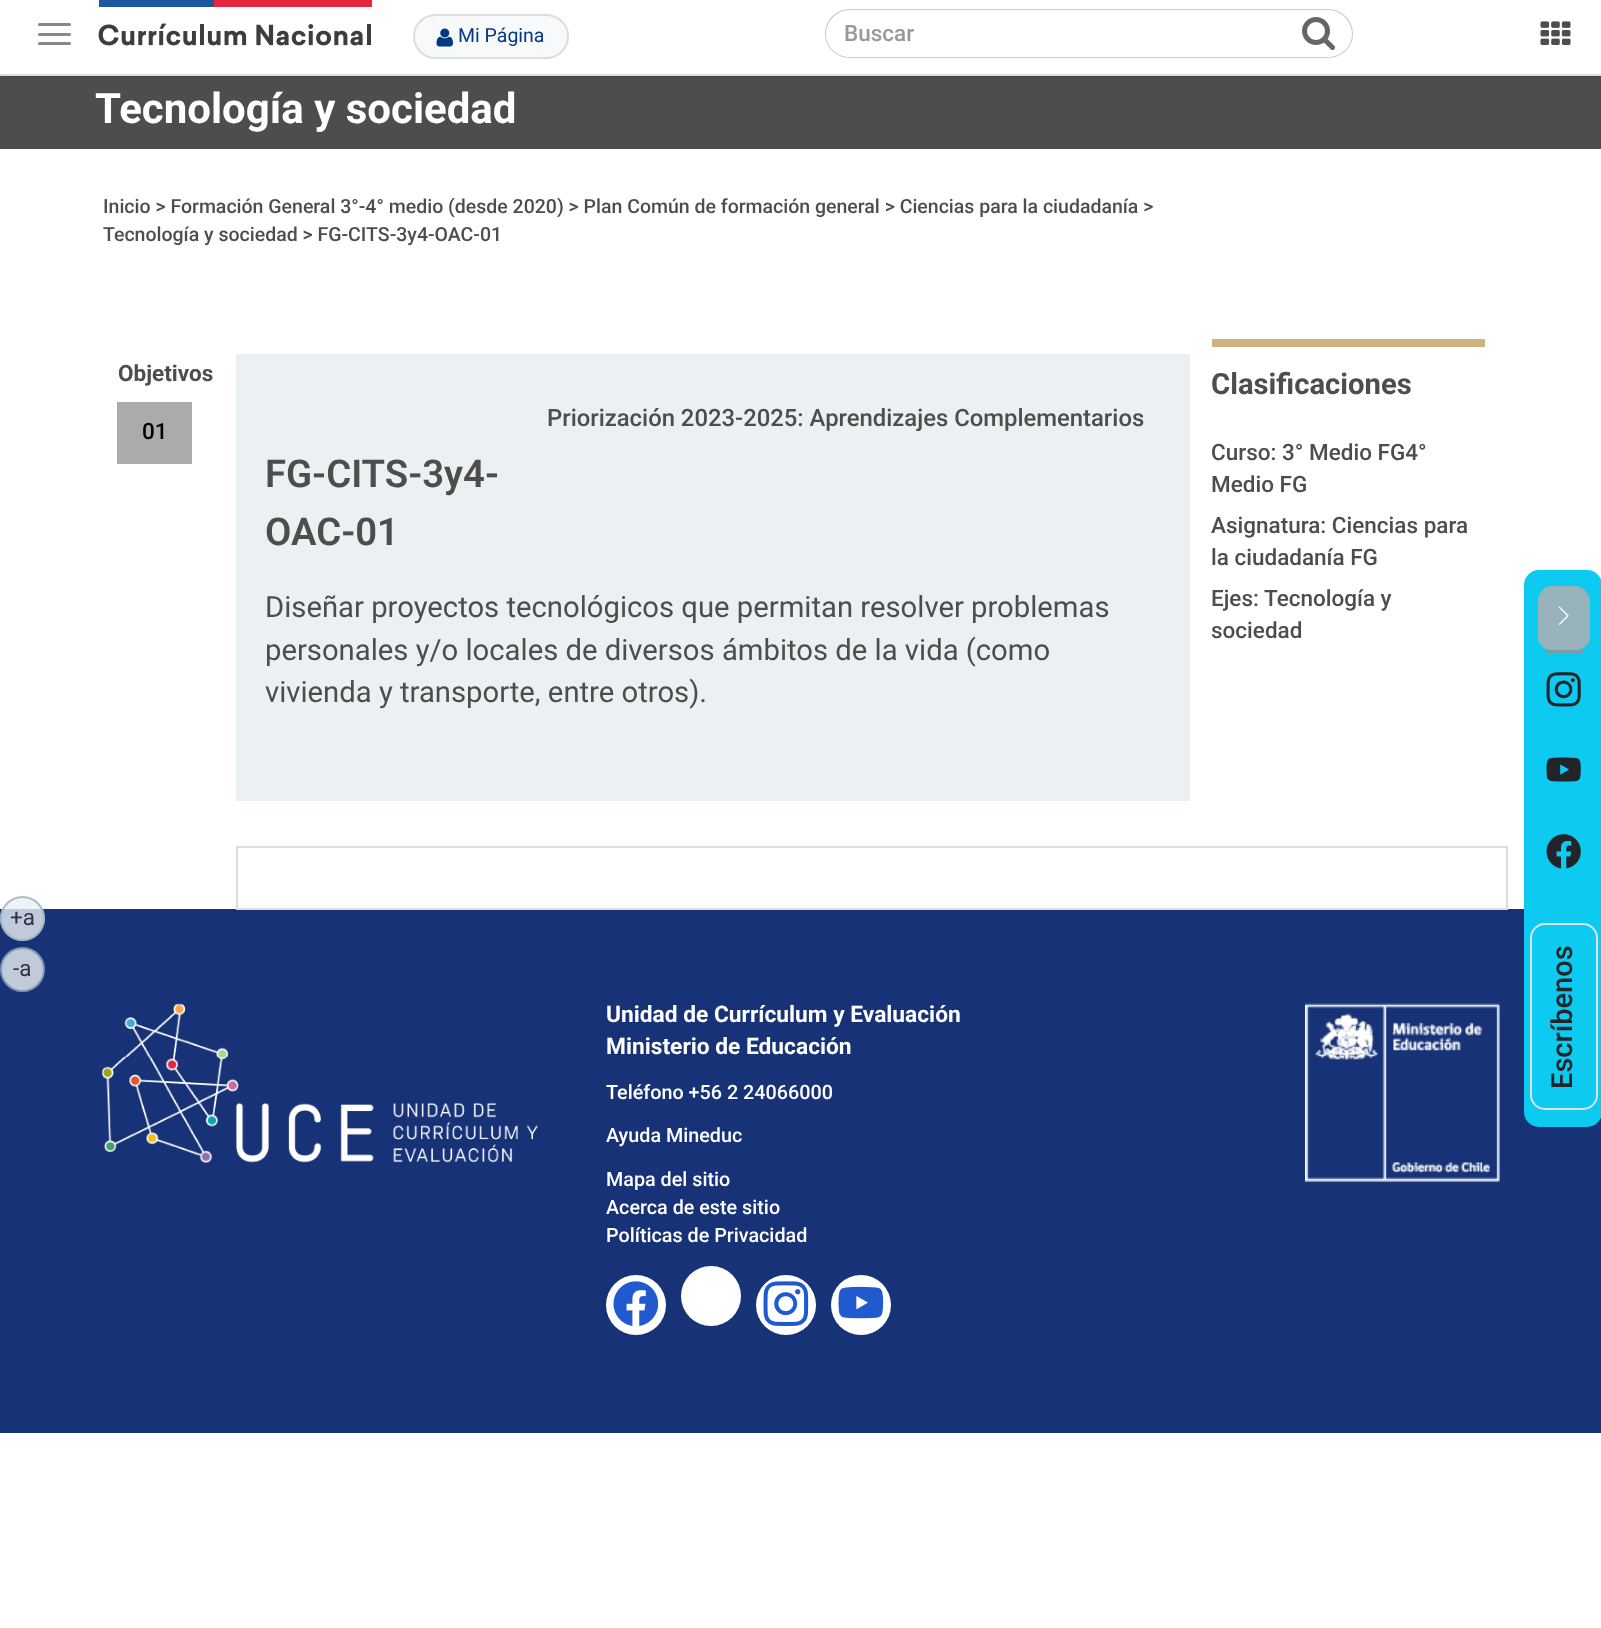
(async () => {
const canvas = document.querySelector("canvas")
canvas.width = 1601
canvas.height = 1628
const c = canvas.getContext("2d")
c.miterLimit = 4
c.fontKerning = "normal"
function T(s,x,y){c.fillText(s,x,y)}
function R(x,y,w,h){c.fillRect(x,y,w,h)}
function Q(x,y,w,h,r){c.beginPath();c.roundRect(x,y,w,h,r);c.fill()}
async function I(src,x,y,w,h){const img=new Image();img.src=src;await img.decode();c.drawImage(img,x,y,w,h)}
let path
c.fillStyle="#fff"
R(0,0,1601,1628)
c.fillStyle="#173277"
R(0,909,1601,524)
c.fillStyle="#ebf0f2cc"
c.beginPath()
c.arc(22.5,918.5,22.5,0,7)
c.fill()
c.beginPath()
c.arc(22.5,918.5,21.5,0,7)
c.strokeStyle="#98b3bccc"
c.lineWidth=2
c.stroke()
c.font="22.5px Roboto"
c.fillStyle="#2d3341"
T("+a",10,925)
c.fillStyle="#c1cad9"
c.beginPath()
c.arc(22.5,969.5,21.5,0,7)
c.fill()
c.strokeStyle="#7e99ae"
c.stroke()
c.fillStyle="#2d3341"
T("-a",13,976)
c.fillStyle="#4d4d4d"
R(0,76,1601,73)
c.save()
c.beginPath()
c.rect(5,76,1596,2)
c.clip()
c.fillStyle="#00000026"
c.filter="blur(3px)"
c.beginPath()
c.rect(6,0,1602,75)
c.fill()
c.filter="none"
c.restore()
c.fillStyle="#ddd"
R(0,74,1601,2)
c.fillStyle="#888"
Q(38,23,33,3,1.5)
Q(38,33,33,3,1.5)
Q(38,42,33,3,1.5)
await I("1.png",98,0,274,46)
c.fillStyle="#f8f9fa"
c.beginPath()
c.roundRect(414,15,154,43,21.5)
c.fill()
c.strokeStyle="#ddd"
c.stroke()
await I("2.png",436,28,17,19)
c.font="19.5px Roboto"
c.fillStyle="#003882"
T("Mi Página",458,42)
c.fillStyle="#ccc"
path = new Path2D("M850 9h446v49h-446c-14 0-25-11-25-24c0-14 11-25 25-25zm0 1h446v47h-446c-13 0-24-10-24-23c0-13 11-24 24-24z")
c.fill(path,"evenodd")
c.font="500 22.5px Roboto"
c.fillStyle="#999"
T("Buscar",844,41)
c.fillStyle="#ccc"
path = new Path2D("M1296 9h32c14 0 25 11 25 25c0 13-11 24-25 24h-32zm0 1h32c13 0 24 11 24 24c0 13-11 23-24 23h-32z")
c.fill(path,"evenodd")
await I("3.png",1302,17,34,34)
await I("4.png",1540,21,31,24)
c.font="bold 42px Roboto"
c.fillStyle="#fff"
T("Tecnología y sociedad",95,123)
c.font="500 19.5px Roboto"
c.fillStyle="#4d4d4d"
T("Inicio > Formación General 3°-4° medio (desde 2020) > Plan Común de formación general > Ciencias para la ciudadanía >",103,213)
T("Tecnología y sociedad > FG-CITS-3y4-OAC-01",103,241)
c.font="bold 22.5px Roboto"
T("Objetivos",118,381)
c.fillStyle="#ababa9"
R(117,402,75,62)
c.font="500 22.5px Roboto"
c.fillStyle="#000"
T("01",142,439)
c.fillStyle="#ebf0f2"
R(236,354,954,447)
c.font="500 23.85px Roboto"
c.fillStyle="#4d4d4d"
T("Priorización 2023-2025: Aprendizajes Complementarios",547,426)
c.font="600 38.25px Roboto"
T("FG-CITS-3y4-",265,487)
T("OAC-01",265,545)
c.font="29.25px Roboto"
T("Diseñar proyectos tecnológicos que permitan resolver problemas",265,617)
T("personales y/o locales de diversos ámbitos de la vida (como",265,660)
T("vivienda y transporte, entre otros).",265,702)
c.fillStyle="#ccb37d"
R(1212,339,273,8)
c.font="bold 29.25px Roboto"
c.fillStyle="#4d4d4d"
T("Clasificaciones",1211,394)
c.font="500 22.5px Roboto"
T("Curso: 3° Medio FG4°",1211,460)
T("Medio FG",1211,492)
T("Asignatura: Ciencias para",1211,533)
T("la ciudadanía FG",1211,565)
T("Ejes:",1211,606)
T("Tecnología y",1264,606)
T("sociedad",1211,638)
c.fillStyle="#ddd"
R(236,846,1272,2)
R(1506,848,2,61)
R(236,908,1272,2)
R(236,848,2,61)
await I("5.png",102,1003,436,160)
c.font="bold 22.75px Roboto"
c.fillStyle="#fff"
T("Unidad de Currículum y Evaluación",606,1022)
T("Ministerio de Educación",606,1054)
c.font="500 19.75px Roboto"
T("Teléfono +56 2 24066000",606,1099)
T("Ayuda Mineduc",606,1142)
T("Mapa del sitio",606,1186)
T("Acerca de este sitio",606,1214)
T("Políticas de Privacidad",606,1242)
c.beginPath()
c.arc(636,1305,30,0,7)
c.fill()
await I("6.png",613,1281,46,45)
c.beginPath()
c.arc(711,1296,30,0,7)
c.fill()
c.beginPath()
c.arc(786,1305,30,0,7)
c.fill()
await I("7.png",763,1281,46,45)
c.beginPath()
c.arc(861,1305,30,0,7)
c.fill()
await I("8.png",838,1286,46,33)
await I("9.png",1305,1003,195,179)
c.fillStyle="#0dcaf0"
c.beginPath()
c.roundRect(1525,571,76,555,14)
c.fill()
c.strokeStyle="#0dcaf0"
c.stroke()
c.fillStyle="#98b3bc"
path = new Path2D("M1552 586h23c8 0 15 7 15 16v36c0 6-7 12-15 12h-23c-8 0-14-6-14-12v-36c0-9 6-16 14-16z")
c.fill(path)
c.fillStyle="#799ca8"
R(1545,650,38,3)
await I("10.png",1558,606,11,19)
await I("11.png",1546,672,35,35)
await I("12.png",1546,757,35,25)
await I("13.png",1546,834,35,35)
c.beginPath()
c.roundRect(1531,924,66,185,14)
c.strokeStyle="#dee2e6"
c.stroke()
c.font="500 29px Roboto"
c.fillStyle="#212529"
c.save()
c.translate(1572,1089)
c.rotate(-90 * Math.PI / 180)
c.fillText("Escríbenos",0,0)
c.restore()
})()
